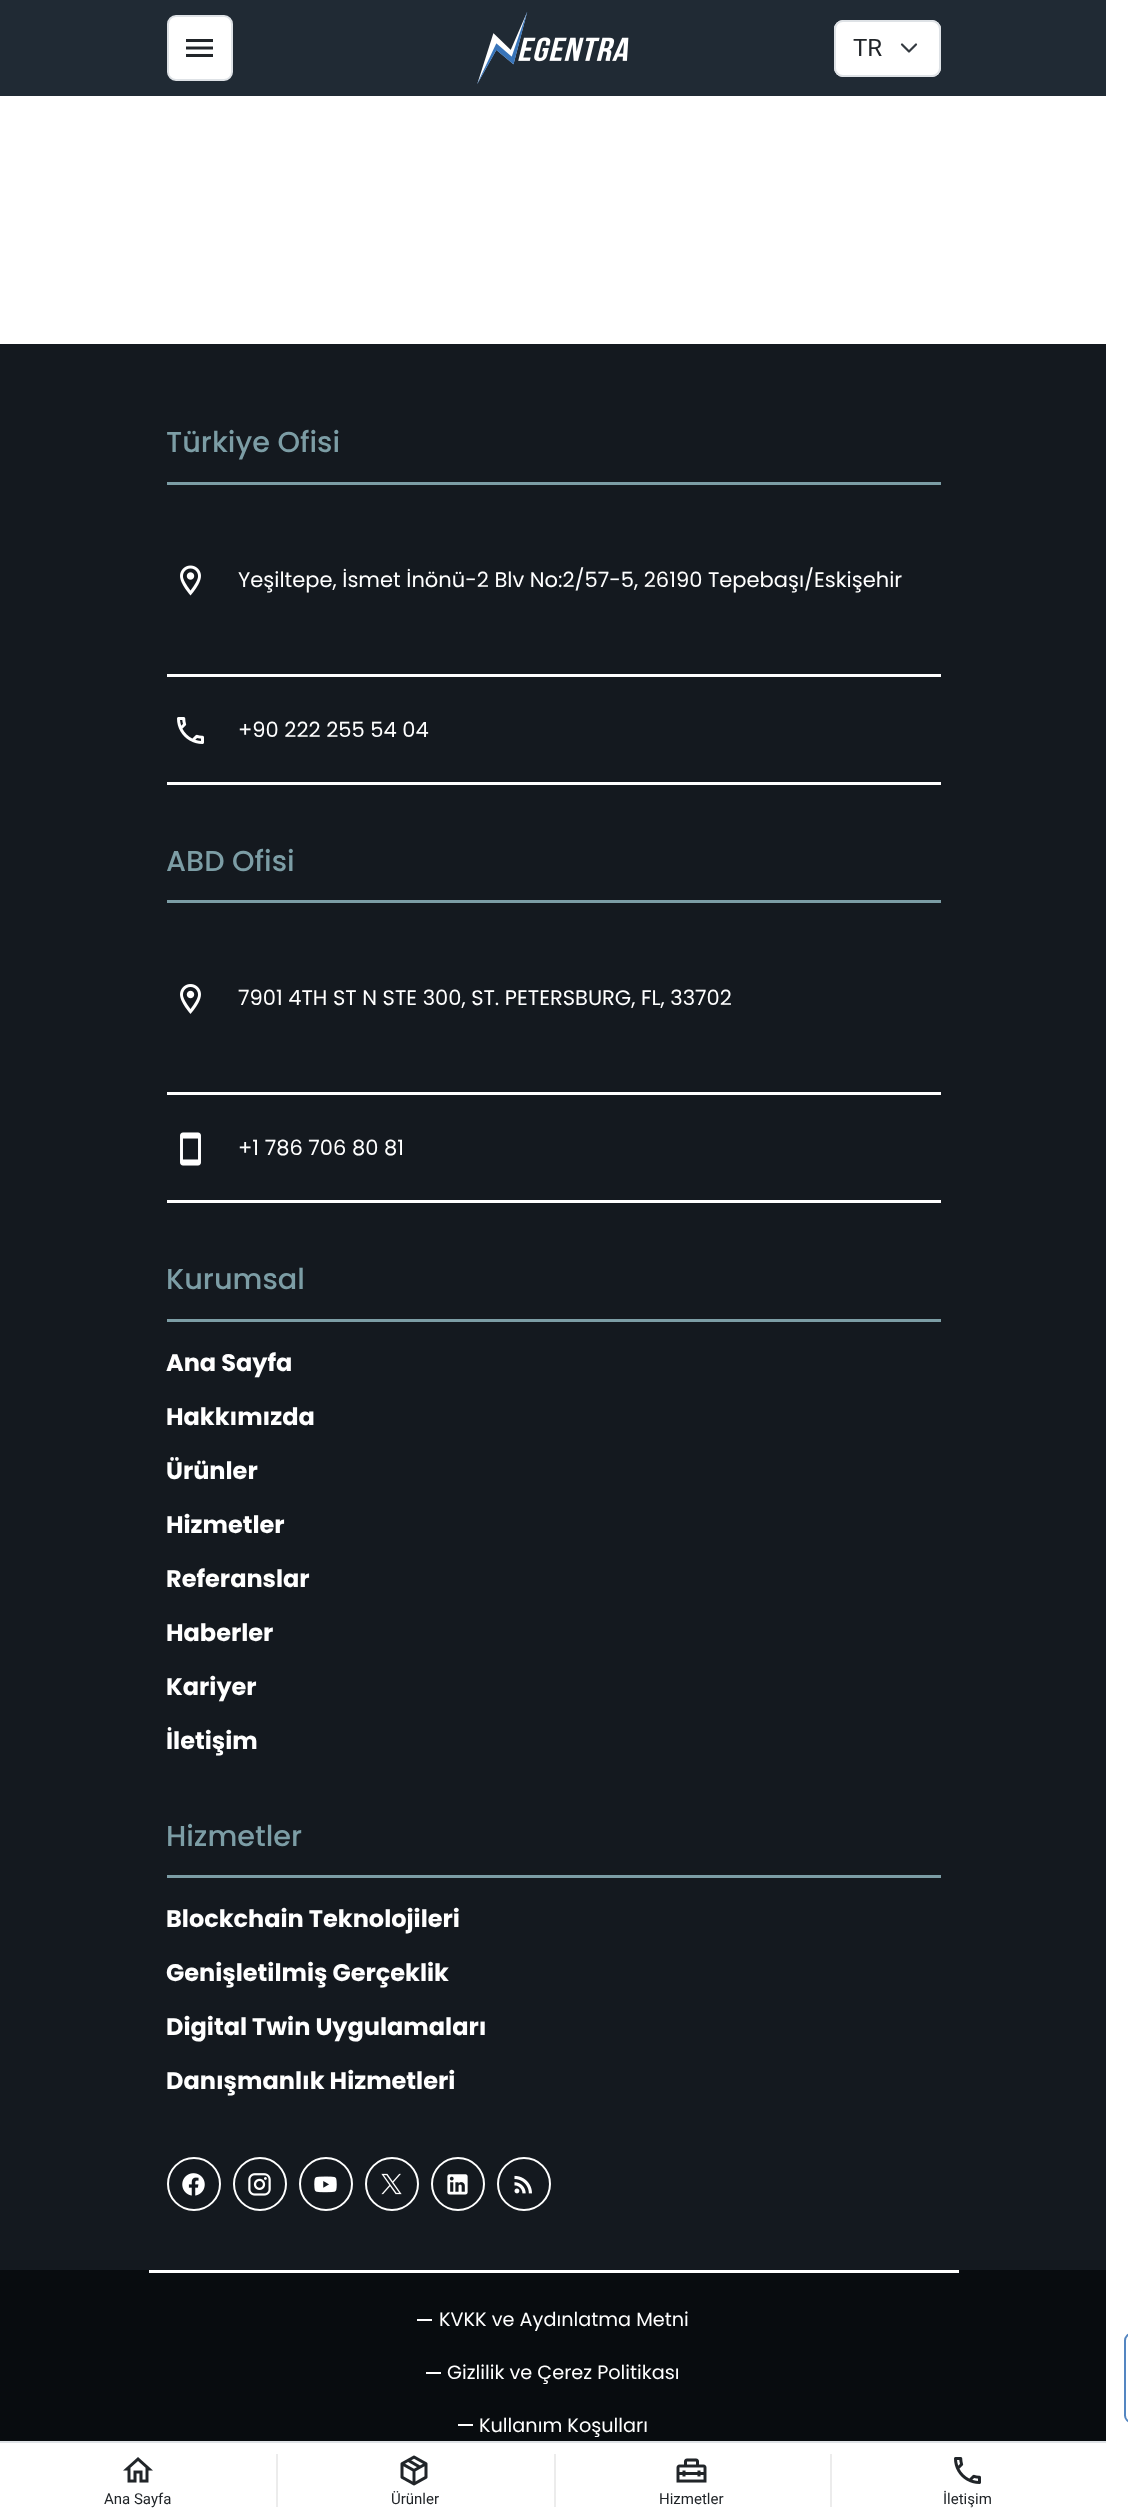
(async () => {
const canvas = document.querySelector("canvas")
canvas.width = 1128
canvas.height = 2518
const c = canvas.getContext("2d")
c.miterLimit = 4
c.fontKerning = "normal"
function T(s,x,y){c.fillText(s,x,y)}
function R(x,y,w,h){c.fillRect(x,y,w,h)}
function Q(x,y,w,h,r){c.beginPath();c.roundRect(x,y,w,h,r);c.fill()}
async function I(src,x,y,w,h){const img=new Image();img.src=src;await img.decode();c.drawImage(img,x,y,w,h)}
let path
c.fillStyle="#fff"
R(0,0,1128,2518)
c.fillStyle="#202a34"
R(0,0,1106,96)
c.fillStyle="#fff"
c.beginPath()
c.roundRect(168,16,64,64,8)
c.fill()
c.strokeStyle="#dee2e6"
c.lineWidth=2
c.stroke()
await I("1.png",186,39,27,18)
await I("2.png",477,12,152,72)
Q(834,20,107,57,9)
path = new Path2D("M902 44.5l7 7l7-7")
c.strokeStyle="#343a40"
c.lineWidth=2.2
c.lineCap="round"
c.lineJoin="round"
c.stroke(path)
c.beginPath()
c.roundRect(835,21,105,55,8)
c.strokeStyle="#dee2e6"
c.lineWidth=2
c.lineJoin="miter"
c.stroke()
c.font="24px Roboto"
c.fillStyle="#212529"
T("TR",853,56)
c.fillStyle="#14191f"
R(0,344,1106,1926)
c.font="500 28.75px Poppins"
c.fillStyle="#7c9da5"
T("Türkiye Ofisi",166,452)
R(167,482,774,3)
await I("3.png",180,565,21,31)
c.font="21px Poppins"
c.fillStyle="#fff"
T("Yeşiltepe, İsmet İnönü-2 Blv No:2/57-5, 26190 Tepebaşı/Eskişehir",238,587)
R(167,674,774,3)
await I("4.png",177,717,27,27)
T("+90 222 255 54 04",238,737)
R(167,782,774,3)
c.font="500 28.75px Poppins"
c.fillStyle="#7c9da5"
T("ABD Ofisi",166,871)
R(167,900,774,3)
await I("5.png",180,984,21,30)
c.font="21px Poppins"
c.fillStyle="#fff"
T("7901 4TH ST N STE 300, ST. PETERSBURG, FL, 33702",238,1005)
R(167,1092,774,3)
await I("6.png",180,1132,21,34)
T("+1 786 706 80 81",238,1155)
R(167,1200,774,3)
c.font="500 28.75px Poppins"
c.fillStyle="#7c9da5"
T("Kurumsal",166,1289)
R(167,1319,774,3)
c.font="bold 24px Poppins"
c.fillStyle="#fff"
T("Ana Sayfa",166,1371)
T("Hakkımızda",166,1425)
T("Ürünler",166,1479)
T("Hizmetler",166,1533)
T("Referanslar",166,1587)
T("Haberler",166,1641)
T("Kariyer",166,1695)
T("İletişim",166,1749)
c.font="500 28.75px Poppins"
c.fillStyle="#7c9da5"
T("Hizmetler",166,1846)
R(167,1875,774,3)
c.font="bold 24px Poppins"
c.fillStyle="#fff"
T("Blockchain Teknolojileri",166,1927)
T("Genişletilmiş Gerçeklik",166,1981)
T("Digital Twin Uygulamaları",166,2035)
T("Danışmanlık Hizmetleri",166,2089)
c.beginPath()
c.arc(194,2184,26,0,7)
c.strokeStyle="#fff"
c.stroke()
await I("7.png",182,2173,23,23)
c.beginPath()
c.arc(260,2184,26,0,7)
c.stroke()
await I("8.png",248,2173,23,23)
c.beginPath()
c.arc(326,2184,26,0,7)
c.stroke()
await I("9.png",314,2176,23,17)
c.beginPath()
c.arc(392,2184,26,0,7)
c.stroke()
await I("10.png",381,2173,21,22)
c.beginPath()
c.arc(458,2184,26,0,7)
c.stroke()
await I("11.png",447,2174,21,21)
c.beginPath()
c.arc(524,2184,26,0,7)
c.stroke()
await I("12.png",514,2175,18,19)
c.fillStyle="#080c0f"
R(0,2270,1106,171)
c.fillStyle="#fff"
R(149,2270,810,3)
R(417,2319,15,2)
c.font="19.25px Poppins"
T("KVKK ve Aydınlatma Metni",439,2326)
R(426,2372,15,2)
T("Gizlilik ve Çerez Politikası",447,2379)
R(458,2424,15,2)
T("Kullanım Koşulları",479,2432)
c.beginPath()
c.roundRect(1125,2334,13,88,8)
c.strokeStyle="#5486c1"
c.stroke()
c.fillStyle="#dee2e6"
R(0,2441,1106,2)
await I("13.png",123,2457,30,26)
c.font="15px Roboto"
c.fillStyle="#212529"
T("Ana Sayfa",104,2504)
c.fillStyle="#ececec"
R(276,2454,2,53)
await I("14.png",400,2455,28,31)
c.fillStyle="#212529"
T("Ürünler",391,2504)
c.fillStyle="#ececec"
R(554,2454,2,53)
await I("15.png",676,2458,31,25)
c.fillStyle="#212529"
T("Hizmetler",659,2504)
c.fillStyle="#ececec"
R(830,2454,2,53)
await I("16.png",954,2457,27,27)
c.fillStyle="#212529"
T("İletişim",943,2504)
})()
